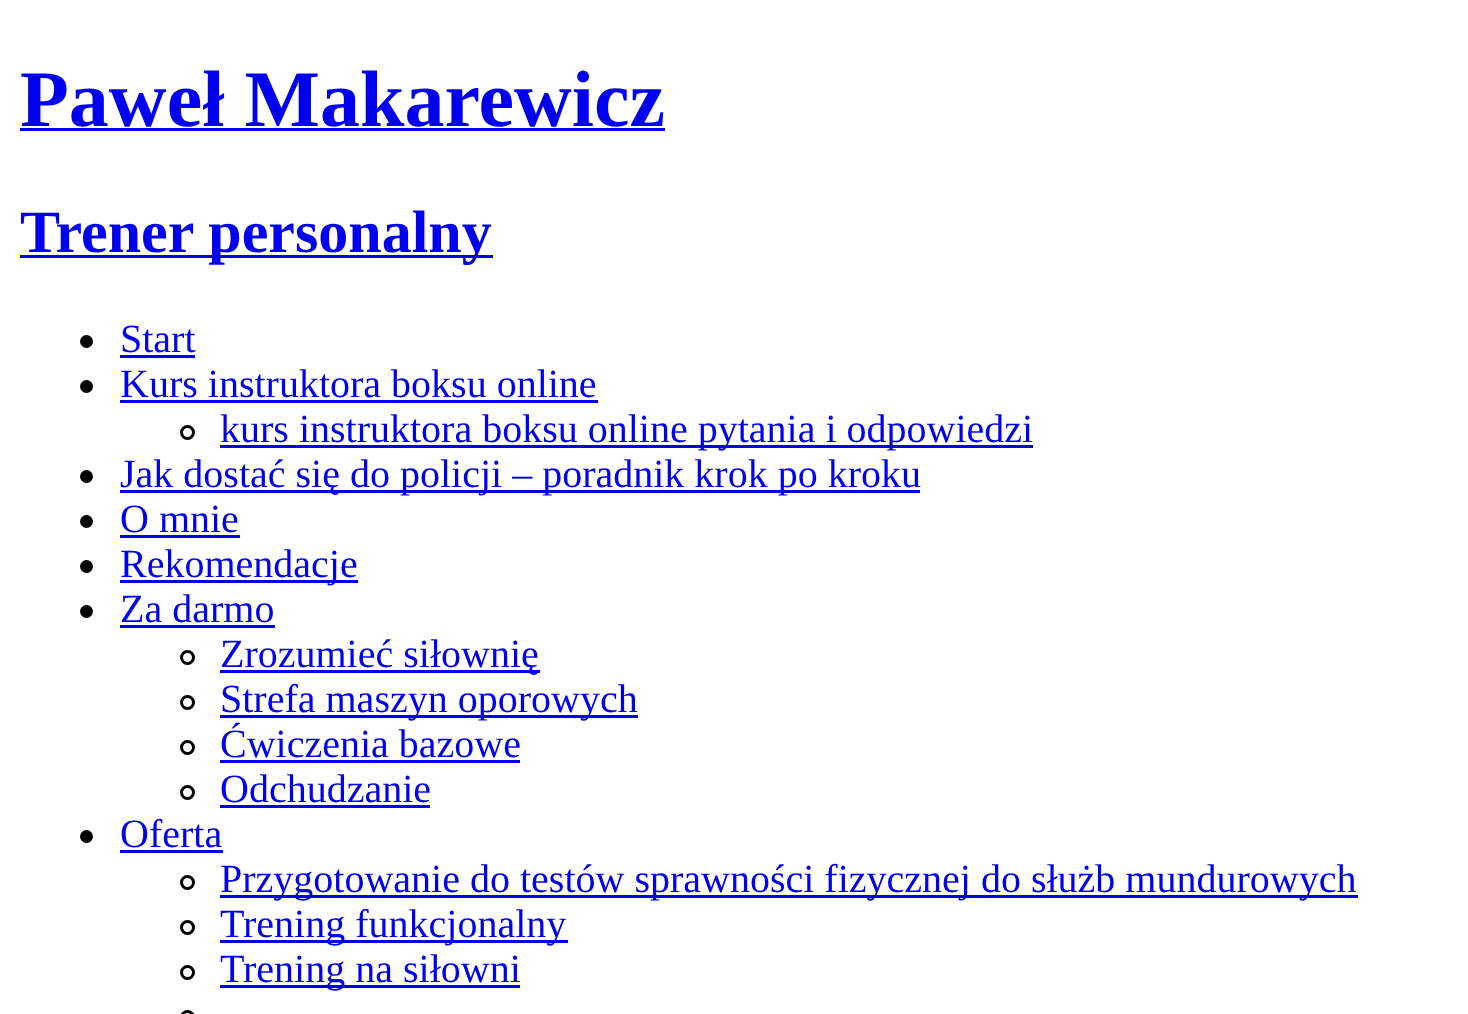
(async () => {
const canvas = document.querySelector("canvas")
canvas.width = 1468
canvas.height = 1014
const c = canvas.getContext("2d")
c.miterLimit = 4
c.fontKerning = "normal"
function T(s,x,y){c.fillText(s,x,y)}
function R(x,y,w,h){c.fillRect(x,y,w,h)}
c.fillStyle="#fff"
R(0,0,1468,1014)
c.font="bold 80px Liberation Serif"
c.fillStyle="#00e"
T("Paweł Makarewicz",20,126)
R(20,128,645,3)
R(20,255,473,3)
c.font="bold 60px Liberation Serif"
T("Trener personalny",20,252)
c.fillStyle="#000"
c.beginPath()
c.arc(86.5,341.5,6.5,0,7)
c.fill()
c.font="40px Liberation Serif"
c.fillStyle="#00e"
T("Start",120,352)
R(120,355,75,3)
c.fillStyle="#000"
c.beginPath()
c.arc(86.5,386.5,6.5,0,7)
c.fill()
c.fillStyle="#00e"
T("Kurs instruktora boksu online",120,397)
R(120,400,478,3)
c.beginPath()
c.arc(187.5,432.5,6,0,7)
c.strokeStyle="#000"
c.lineWidth=3
c.stroke()
R(220,445,813,3)
T("kurs instruktora boksu online pytania i odpowiedzi",220,442)
c.fillStyle="#000"
c.beginPath()
c.arc(86.5,476.5,6.5,0,7)
c.fill()
c.fillStyle="#00e"
R(120,490,800,3)
T("Jak dostać się do policji – poradnik krok po kroku",120,487)
c.fillStyle="#000"
c.beginPath()
c.arc(86.5,521.5,6.5,0,7)
c.fill()
c.fillStyle="#00e"
T("O mnie",120,532)
R(120,535,120,3)
c.fillStyle="#000"
c.beginPath()
c.arc(86.5,566.5,6.5,0,7)
c.fill()
c.fillStyle="#00e"
R(120,580,238,3)
T("Rekomendacje",120,577)
c.fillStyle="#000"
c.beginPath()
c.arc(86.5,611.5,6.5,0,7)
c.fill()
c.fillStyle="#00e"
T("Za darmo",120,622)
R(120,625,155,3)
c.beginPath()
c.arc(187.5,657.5,6,0,7)
c.stroke()
R(220,670,320,3)
T("Zrozumieć siłownię",220,667)
c.beginPath()
c.arc(187.5,702.5,6,0,7)
c.stroke()
R(220,715,418,3)
T("Strefa maszyn oporowych",220,712)
c.beginPath()
c.arc(187.5,747.5,6,0,7)
c.stroke()
T("Ćwiczenia bazowe",220,757)
R(220,760,300,3)
c.beginPath()
c.arc(187.5,792.5,6,0,7)
c.stroke()
T("Odchudzanie",220,802)
R(220,805,210,3)
c.fillStyle="#000"
c.beginPath()
c.arc(86.5,836.5,6.5,0,7)
c.fill()
c.fillStyle="#00e"
T("Oferta",120,847)
R(120,850,103,3)
c.beginPath()
c.arc(187.5,882.5,6,0,7)
c.stroke()
R(220,895,1138,3)
T("Przygotowanie do testów sprawności fizycznej do służb mundurowych",220,892)
c.beginPath()
c.arc(187.5,927.5,6,0,7)
c.stroke()
R(220,940,348,3)
T("Trening funkcjonalny",220,937)
c.beginPath()
c.arc(187.5,972.5,6,0,7)
c.stroke()
R(220,985,300,3)
T("Trening na siłowni",220,982)
c.beginPath()
c.arc(187.5,1017.5,6,0,7)
c.stroke()
})()
